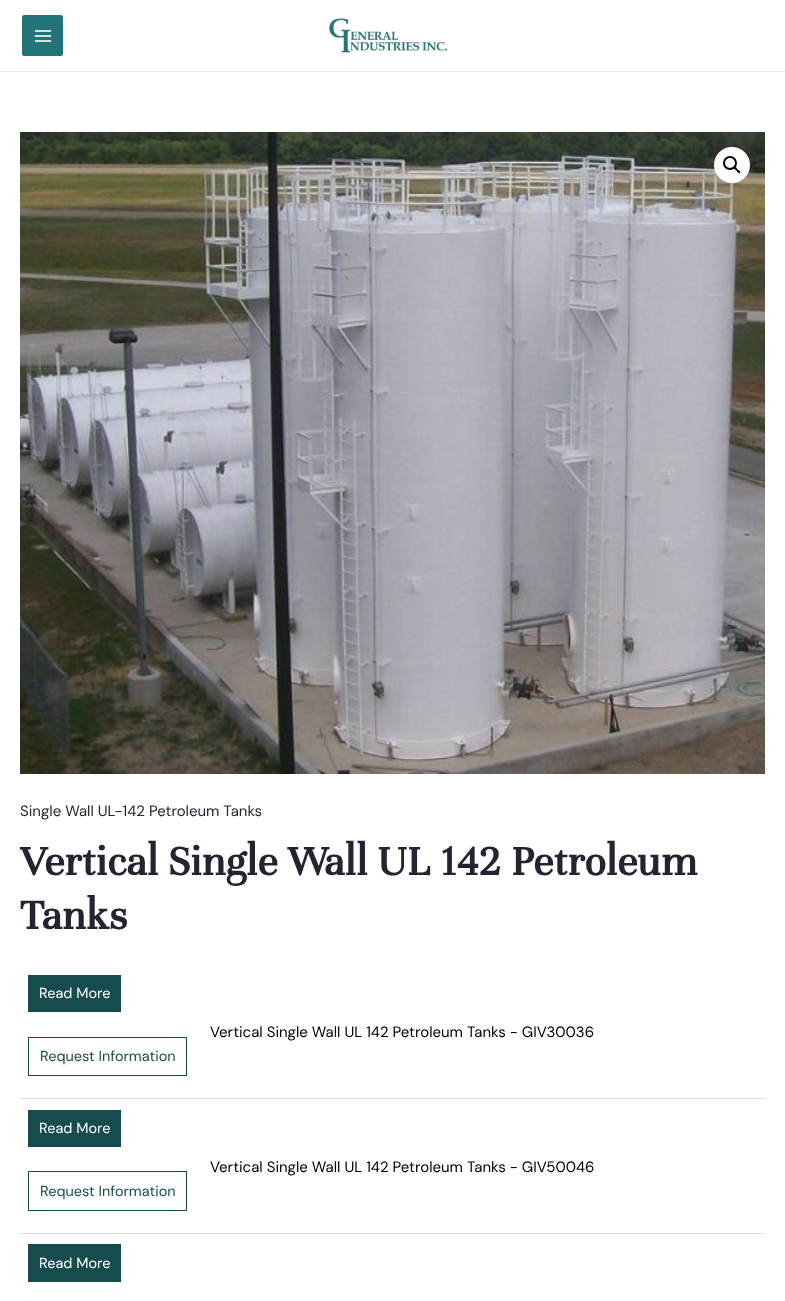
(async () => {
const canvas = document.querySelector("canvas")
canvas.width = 785
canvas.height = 1301
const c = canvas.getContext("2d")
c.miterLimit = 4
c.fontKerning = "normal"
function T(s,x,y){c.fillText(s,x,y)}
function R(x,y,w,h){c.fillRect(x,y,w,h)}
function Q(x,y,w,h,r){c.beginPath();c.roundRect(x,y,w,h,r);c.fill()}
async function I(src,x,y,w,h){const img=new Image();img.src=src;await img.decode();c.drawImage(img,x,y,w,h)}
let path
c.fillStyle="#fff"
R(0,0,785,1301)
c.fillStyle="#eaeaea"
R(0,71,785,1)
c.fillStyle="#237478"
Q(22,15,41,41,2)
await I("1.png",34,30,18,12)
await I("2.png",329,18,119,35)
await I("3.png",20,132,745,642)
c.fillStyle="#fff"
c.beginPath()
c.arc(732,165,18,0,7)
c.fill()
c.beginPath()
c.arc(730,163,6,0,7)
c.strokeStyle="#000"
c.lineWidth=2
c.stroke()
c.fillStyle="#000"
path = new Path2D("M734 167c1.5-1 3 1.5 3.5 2.5c1 .5 3.5 2 2.5 3.5c-1.5 1-3-1.5-3.5-2.5c-1-.5-3.5-2-2.5-3.5z")
c.fill(path)
c.font="15px DM Sans"
c.fillStyle="#26222f"
T("Single Wall UL-142 Petroleum Tanks",20,816)
c.font="bold 45px Unna"
T("Vertical Single Wall UL 142 Petroleum",20,875)
T("Tanks",20,929)
c.fillStyle="#ddd"
R(20,1098,745,1)
c.fillStyle="#174c4f"
R(28,975,93,37)
c.font="14.5px DM Sans"
c.fillStyle="#fff"
T("Read More",39,998)
c.strokeStyle="#174c4f"
c.lineWidth=1
c.strokeRect(28.5,1037.5,158,38)
c.fillStyle="#174c4f"
T("Request Information",40,1061)
c.font="15px DM Sans"
c.fillStyle="#000"
T("Vertical Single Wall UL 142 Petroleum Tanks - GIV30036",210,1037)
c.fillStyle="#ddd"
R(20,1233,745,1)
c.fillStyle="#174c4f"
R(28,1110,93,37)
c.font="14.5px DM Sans"
c.fillStyle="#fff"
T("Read More",39,1133)
c.strokeRect(28.5,1171.5,158,39)
c.fillStyle="#174c4f"
T("Request Information",40,1196)
c.font="15px DM Sans"
c.fillStyle="#000"
T("Vertical Single Wall UL 142 Petroleum Tanks - GIV50046",210,1172)
c.fillStyle="#174c4f"
R(28,1244,93,38)
c.font="14.5px DM Sans"
c.fillStyle="#fff"
T("Read More",39,1268)
})()
